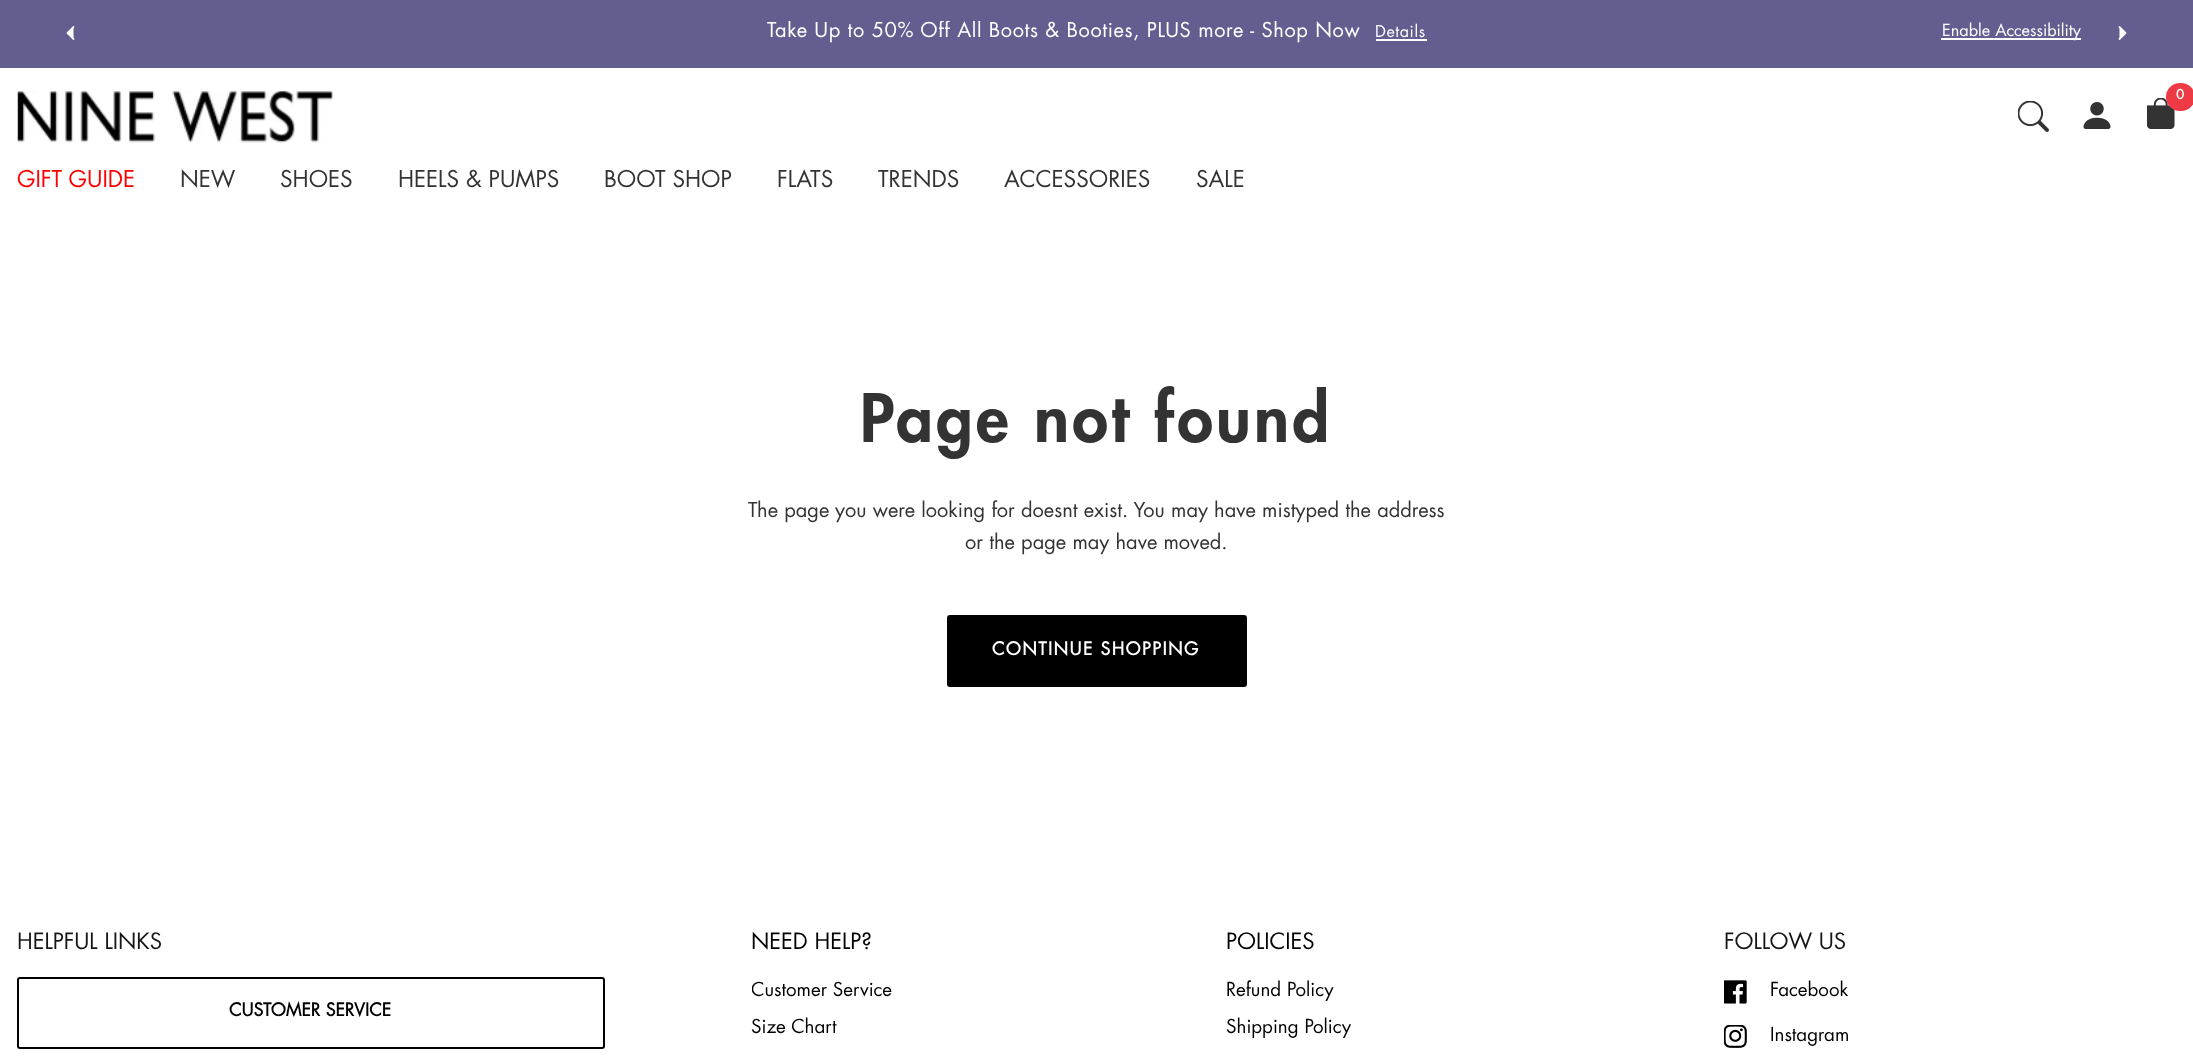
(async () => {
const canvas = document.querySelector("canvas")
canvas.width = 2193
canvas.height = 1057
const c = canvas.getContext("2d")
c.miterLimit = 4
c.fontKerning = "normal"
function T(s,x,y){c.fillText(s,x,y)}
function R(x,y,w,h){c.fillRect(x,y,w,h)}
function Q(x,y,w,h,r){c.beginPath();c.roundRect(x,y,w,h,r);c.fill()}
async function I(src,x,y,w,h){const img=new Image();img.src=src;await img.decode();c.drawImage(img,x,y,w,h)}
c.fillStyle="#fff"
R(0,0,2193,1057)
c.fillStyle="#635e90"
R(0,0,2193,68)
await I("1.png",66,26,9,14)
c.save()
c.beginPath()
c.rect(75,21,2043,26)
c.clip()
c.letterSpacing="0.6px"
c.font="20.05px 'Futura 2'"
c.fillStyle="#fff"
T("Take Up to 50% Off All Boots & Booties, PLUS more - Shop Now",767,37)
c.restore()
c.letterSpacing="0.6px"
c.font="16px 'Futura 2'"
c.fillStyle="#fff"
T("Details",1375,37)
R(1376,39,51,2)
await I("2.png",2118,26,9,14)
await I("3.png",17,90,316,53)
await I("4.png",2146,98,29,31)
c.fillStyle="#ee3a45"
Q(2166,83,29,28,14)
c.letterSpacing="0px"
c.font="bold 13px Futura"
c.fillStyle="#fff"
T("0",2176,99)
await I("5.png",2018,101,31,31)
await I("6.png",2083,102,28,27)
c.font="22.5px 'Futura 2'"
c.fillStyle="#f00"
T("GIFT GUIDE",17,187)
c.fillStyle="#333"
T("NEW",180,187)
T("SHOES",280,187)
T("HEELS & PUMPS",398,187)
T("BOOT SHOP",604,187)
T("FLATS",777,187)
T("TRENDS",878,187)
T("ACCESSORIES",1004,187)
T("SALE",1196,187)
c.letterSpacing="3.25px"
c.font="65px Futura"
T("Page not found",860,442)
c.letterSpacing="0px"
c.font="20.05px 'Futura 2'"
T("The page you were looking for doesnt exist. You may have mistyped the address",748,517)
T("or the page may have moved.",965,549)
c.fillStyle="#000"
c.beginPath()
c.roundRect(948,616,298,70,2)
c.fill()
c.strokeStyle="#000"
c.lineWidth=2
c.stroke()
c.letterSpacing="1.4px"
c.font="bold 17.5px Futura"
c.fillStyle="#fff"
T("CONTINUE SHOPPING",992,655)
c.letterSpacing="0px"
c.font="22px 'Futura 2'"
c.fillStyle="#151515"
T("HELPFUL LINKS",17,949)
c.beginPath()
c.roundRect(18,978,586,70,2)
c.stroke()
c.font="bold 17.5px Futura"
c.fillStyle="#000"
T("CUSTOMER SERVICE",229,1016)
c.font="22px 'Futura 2'"
T("NEED HELP?",751,949)
c.save()
c.beginPath()
c.rect(752,977,474,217)
c.clip()
c.font="18.75px 'Futura 2'"
T("Customer Service",751,996)
c.restore()
c.font="18.75px 'Futura 2'"
T("Size Chart",751,1033)
c.font="22px 'Futura 2'"
T("POLICIES",1226,949)
c.font="18.75px 'Futura 2'"
T("Refund Policy",1226,996)
T("Shipping Policy",1226,1033)
c.font="22px 'Futura 2'"
c.fillStyle="#151515"
T("FOLLOW US",1724,949)
await I("7.png",1724,980,23,24)
c.font="18.75px 'Futura 2'"
c.fillStyle="#000"
T("Facebook",1770,996)
await I("8.png",1724,1025,23,23)
T("Instagram",1770,1041)
c.fillStyle="#fff"
R(1941,38,140,2)
c.font="16.25px 'Futura 2'"
T("Enable Accessibility",1942,36)
})()
